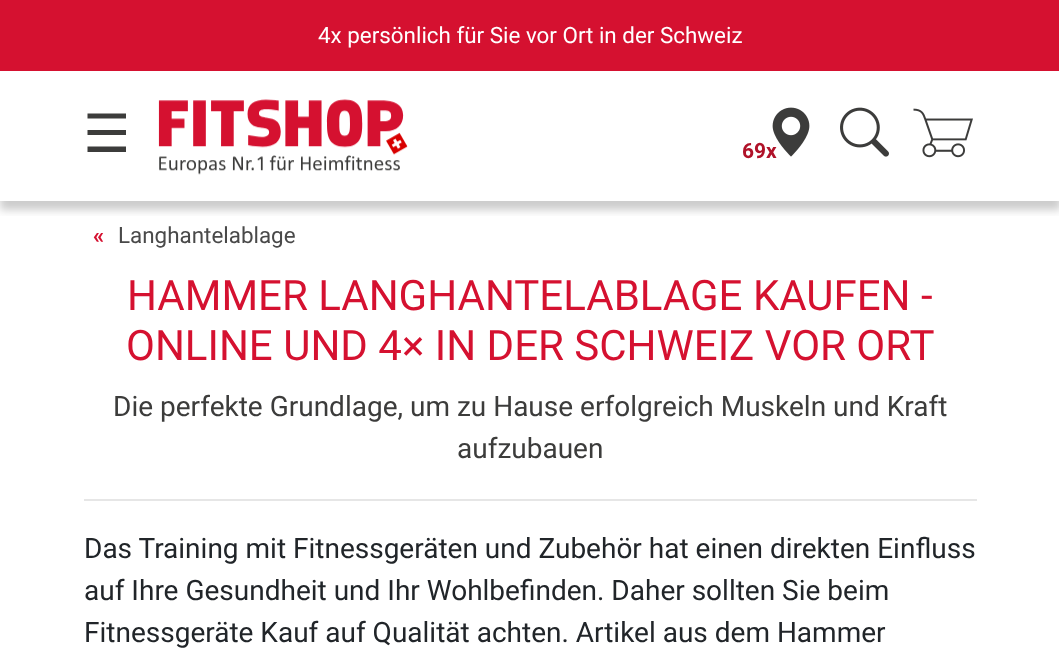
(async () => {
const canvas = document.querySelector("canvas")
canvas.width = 1059
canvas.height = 665
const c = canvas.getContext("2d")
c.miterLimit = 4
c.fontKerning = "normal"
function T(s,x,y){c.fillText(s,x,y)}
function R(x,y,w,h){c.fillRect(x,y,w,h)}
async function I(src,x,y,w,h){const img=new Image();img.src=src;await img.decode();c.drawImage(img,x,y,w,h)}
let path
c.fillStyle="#fff"
R(0,0,1059,665)
c.save()
c.beginPath()
c.rect(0,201,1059,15)
c.clip()
c.fillStyle="#00000033"
c.filter="blur(4.5px)"
c.beginPath()
c.rect(0,9,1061,201)
c.fill()
c.filter="none"
c.restore()
c.fillStyle="#d51130"
R(0,0,1059,71)
c.font="22.4px Roboto"
c.fillStyle="#fff"
T("4x persönlich für Sie vor Ort in der Schweiz",318,43)
c.fillStyle="#3c3c3b"
path = new Path2D("M87.5 113.5v5h38.5v-5zm0 16.5v5h38.5v-5zm0 16.5v5.5h38.5v-5.5z")
c.fill(path)
await I("1.png",158,99,250,76)
await I("2.png",772,107,38,50)
c.font="bold 21px Roboto"
c.fillStyle="#b01229"
T("69x",742,158)
await I("3.png",840,107,49,50)
await I("4.png",913,108,60,50)
c.font="bold 22.4px Roboto"
c.fillStyle="#d51130"
T("«",93,243)
c.font="22.4px Roboto"
c.fillStyle="#494949"
T("Langhantelablage",118,243)
c.font="42px Roboto"
c.fillStyle="#d51130"
T("HAMMER LANGHANTELABLAGE KAUFEN -",127,310)
T("ONLINE UND 4× IN DER SCHWEIZ VOR ORT",126,360)
c.font="28px Roboto"
c.fillStyle="#3c3c3b"
T("Die perfekte Grundlage, um zu Hause erfolgreich Muskeln und Kraft",113,416)
T("aufzubauen",457,458)
c.fillStyle="#e6e6e6"
R(84,499,893,2)
c.fillStyle="#212529"
T("Das Training mit Fitnessgeräten und Zubehör hat einen direkten Einfluss",84,558)
T("auf Ihre Gesundheit und Ihr Wohlbefinden. Daher sollten Sie beim",84,600)
T("Fitnessgeräte Kauf auf Qualität achten. Artikel aus dem Hammer",84,642)
})()
